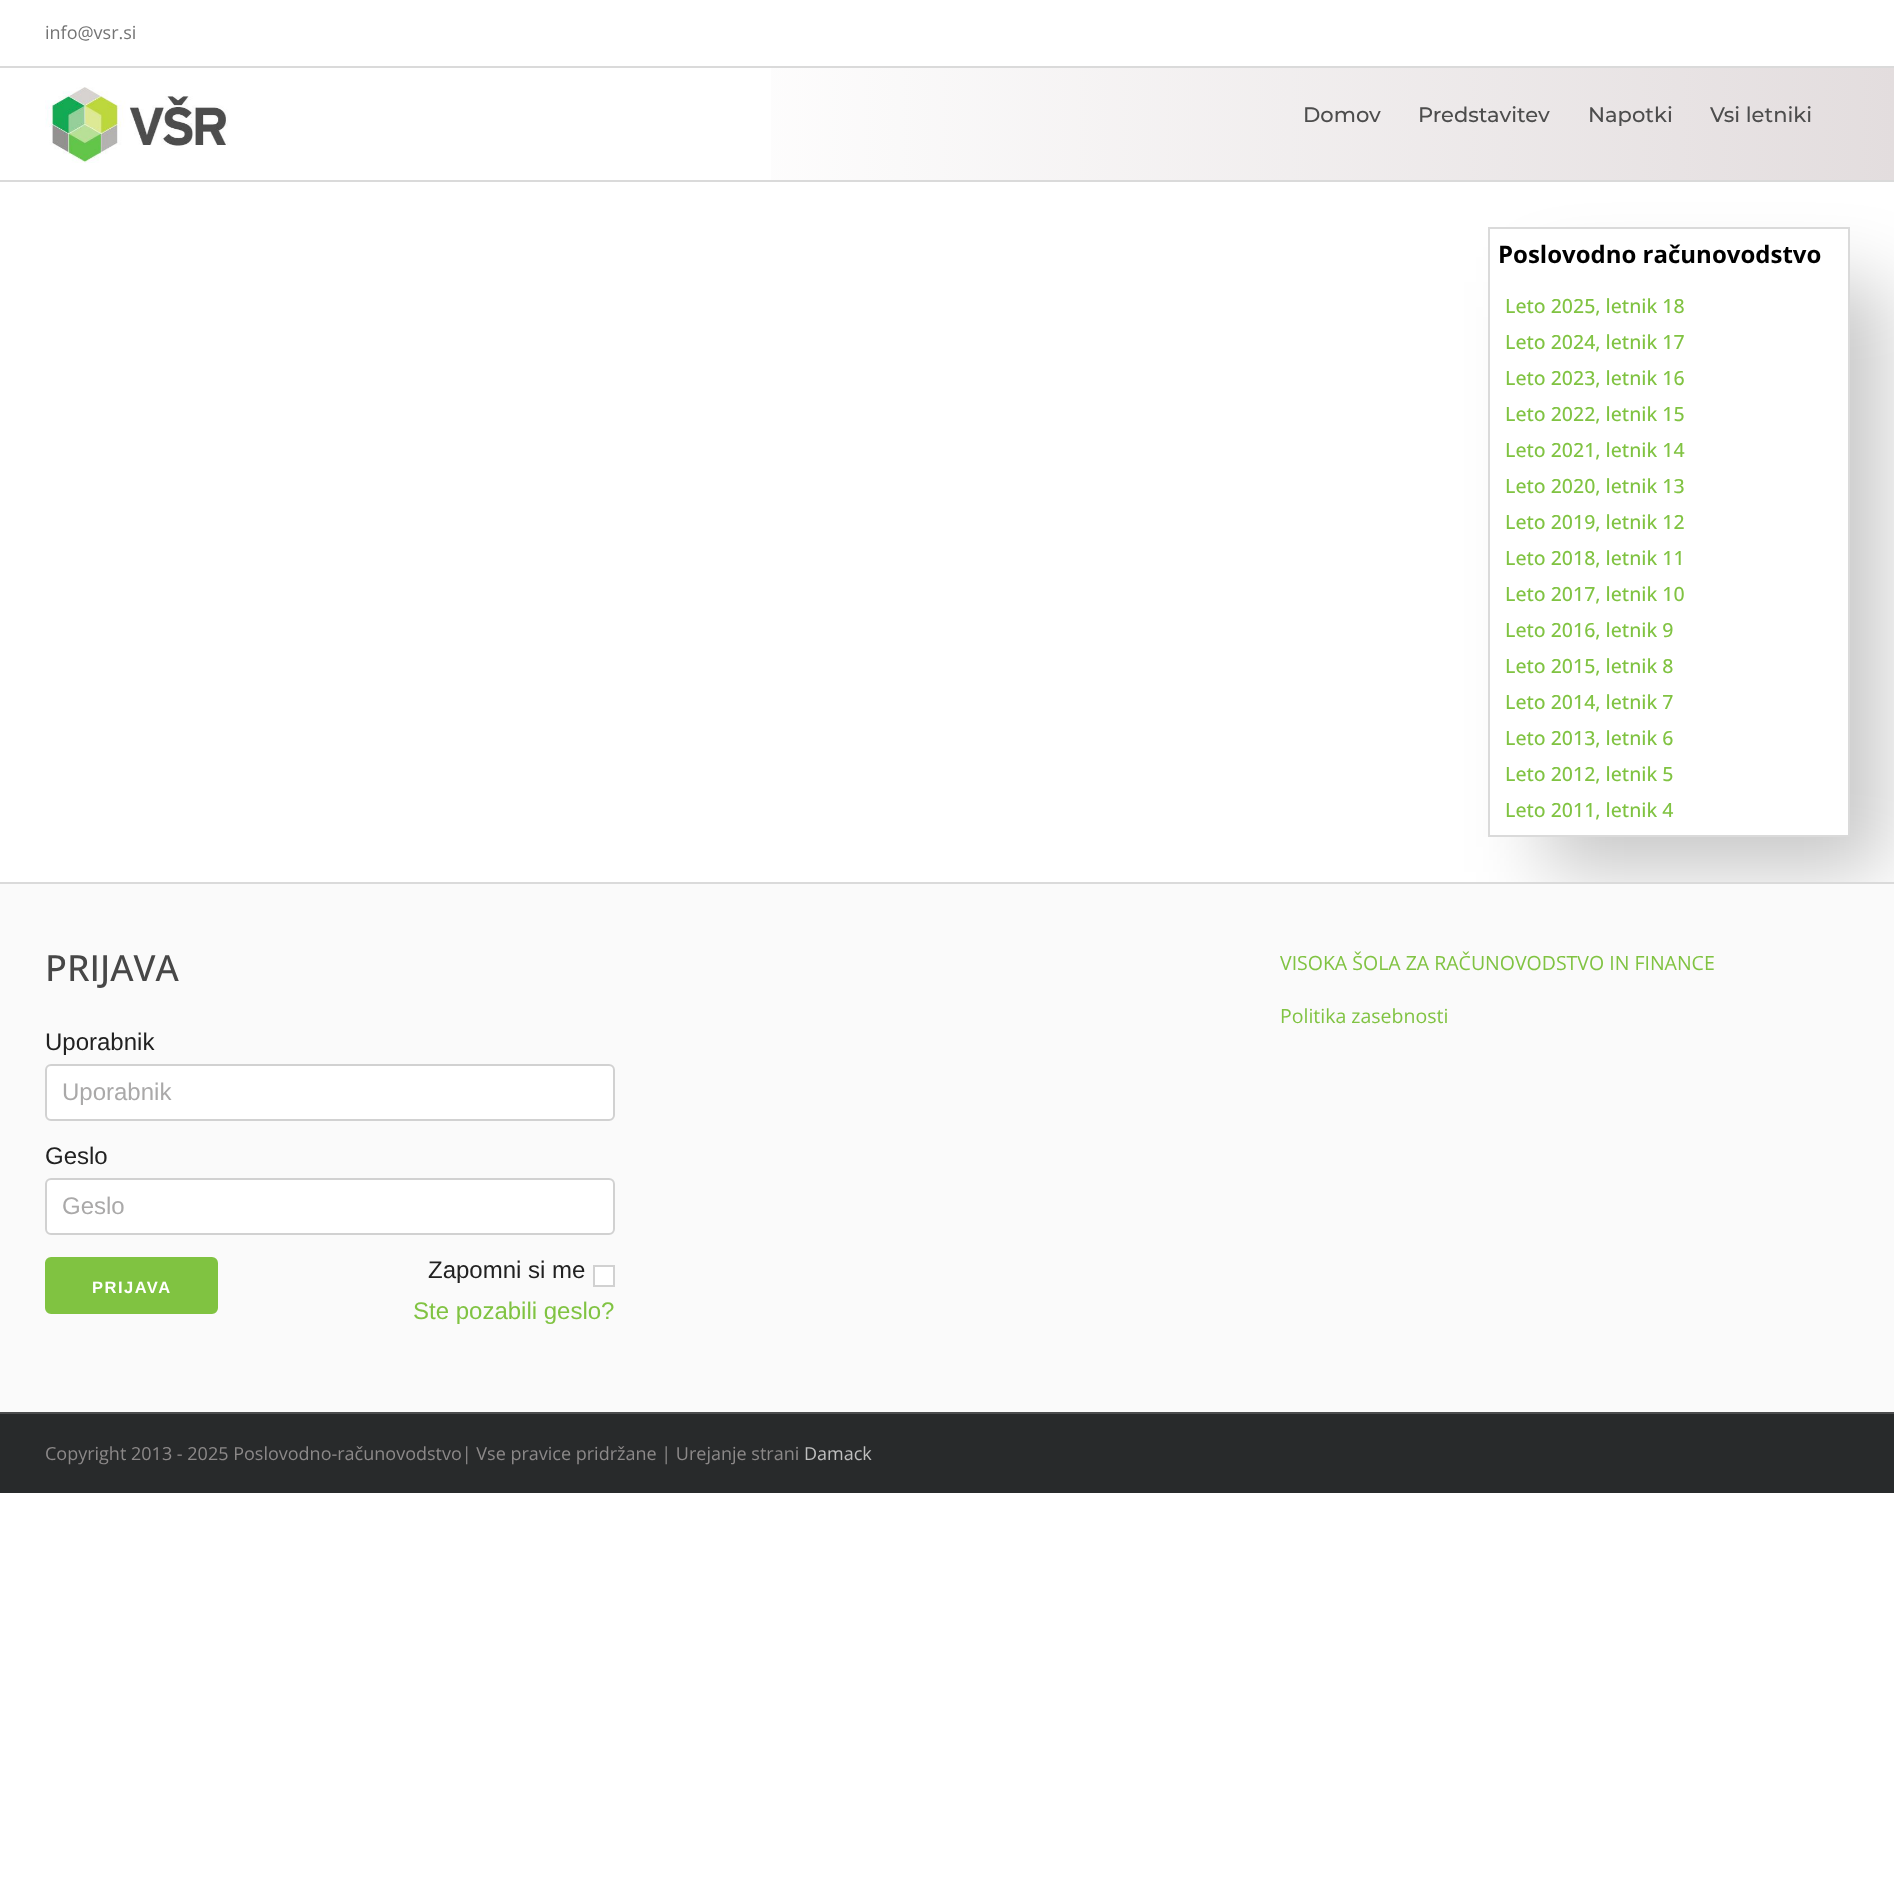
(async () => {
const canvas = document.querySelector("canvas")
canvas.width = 1894
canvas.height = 1892
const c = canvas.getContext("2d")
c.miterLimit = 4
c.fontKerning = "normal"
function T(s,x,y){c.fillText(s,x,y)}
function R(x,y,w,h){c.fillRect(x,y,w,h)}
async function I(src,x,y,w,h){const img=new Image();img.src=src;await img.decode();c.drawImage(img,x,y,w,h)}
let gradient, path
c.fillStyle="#fff"
R(0,0,1894,1892)
c.fillStyle="#dadada"
R(0,66,1894,2)
c.font="18px Open Sans"
c.fillStyle="#747474"
T("info@vsr.si",45,39)
c.save()
path = new Path2D("M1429 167h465v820h-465zm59 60h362v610h-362z")
c.clip(path,"evenodd")
c.fillStyle="#00000038"
c.filter="blur(38px)"
c.beginPath()
c.rect(1544,282,340,590)
c.fill()
c.filter="none"
c.restore()
gradient = c.createLinearGradient(0,124,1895,124)
gradient.addColorStop(.36,"#fff")
gradient.addColorStop(1,"#e3ddde")
c.fillStyle = gradient
R(771,68,1123,112)
c.fillStyle="#dadada"
R(0,180,1894,2)
await I("1.png",45,87,183,76)
c.font="500 21px Montserrat"
c.fillStyle="#4d4d4d"
T("Domov",1303,122)
T("Predstavitev",1418,122)
T("Napotki",1588,122)
T("Vsi letniki",1710,122)
c.strokeStyle="#dadada"
c.lineWidth=2
c.strokeRect(1489,228,360,608)
c.font="bold 24px Open Sans"
c.fillStyle="#000"
T("Poslovodno računovodstvo",1498,263)
c.font="500 19.5px Open Sans"
c.fillStyle="#80c342"
T("Leto 2025, letnik 18",1505,313)
T("Leto 2024, letnik 17",1505,349)
T("Leto 2023, letnik 16",1505,385)
T("Leto 2022, letnik 15",1505,421)
T("Leto 2021, letnik 14",1505,457)
T("Leto 2020, letnik 13",1505,493)
T("Leto 2019, letnik 12",1505,529)
T("Leto 2018, letnik 11",1505,565)
T("Leto 2017, letnik 10",1505,601)
T("Leto 2016, letnik 9",1505,637)
T("Leto 2015, letnik 8",1505,673)
T("Leto 2014, letnik 7",1505,709)
T("Leto 2013, letnik 6",1505,745)
T("Leto 2012, letnik 5",1505,781)
T("Leto 2011, letnik 4",1505,817)
c.fillStyle="#fafafa"
R(0,884,1894,528)
c.fillStyle="#dadada"
R(0,882,1894,2)
c.font="500 36px Open Sans"
c.fillStyle="#474747"
T("PRIJAVA",45,981)
c.font="24px Liberation Sans"
c.fillStyle="#212121"
T("Uporabnik",45,1050)
c.fillStyle="#fff"
c.beginPath()
c.roundRect(46,1065,568,55,5)
c.fill()
c.strokeStyle="#d1d1d1"
c.stroke()
c.fillStyle="#aaa9a9"
T("Uporabnik",62,1100)
c.fillStyle="#212121"
T("Geslo",45,1164)
c.fillStyle="#fff"
c.beginPath()
c.roundRect(46,1179,568,55,5)
c.fill()
c.stroke()
c.fillStyle="#aaa9a9"
T("Geslo",62,1214)
c.fillStyle="#80c341"
c.beginPath()
c.roundRect(46,1258,171,55,5)
c.fill()
c.strokeStyle="#80c341"
c.stroke()
c.letterSpacing="1.5px"
c.font="bold 16.5px Liberation Sans"
c.fillStyle="#fff"
T("PRIJAVA",92,1293)
c.letterSpacing="0px"
c.font="24px Liberation Sans"
c.fillStyle="#212121"
T("Zapomni si me",428,1278)
c.fillStyle="#fff"
c.beginPath()
c.rect(594,1266,20,20)
c.fill()
c.strokeStyle="#d1d1d1"
c.stroke()
c.fillStyle="#80c342"
T("Ste pozabili geslo?",413,1319)
c.font="19.5px Open Sans"
T("VISOKA ŠOLA ZA RAČUNOVODSTVO IN FINANCE",1280,970)
T("Politika zasebnosti",1280,1023)
c.fillStyle="#282a2b"
R(0,1414,1894,79)
c.fillStyle="#4b4c4d"
R(0,1412,1894,2)
c.font="18px Open Sans"
c.fillStyle="#8c8989"
T("Copyright 2013 - 2025 Poslovodno-računovodstvo| Vse pravice pridržane | Urejanje strani",45,1460)
c.fillStyle="#bfbfbf"
T("Damack",804,1460)
})()
